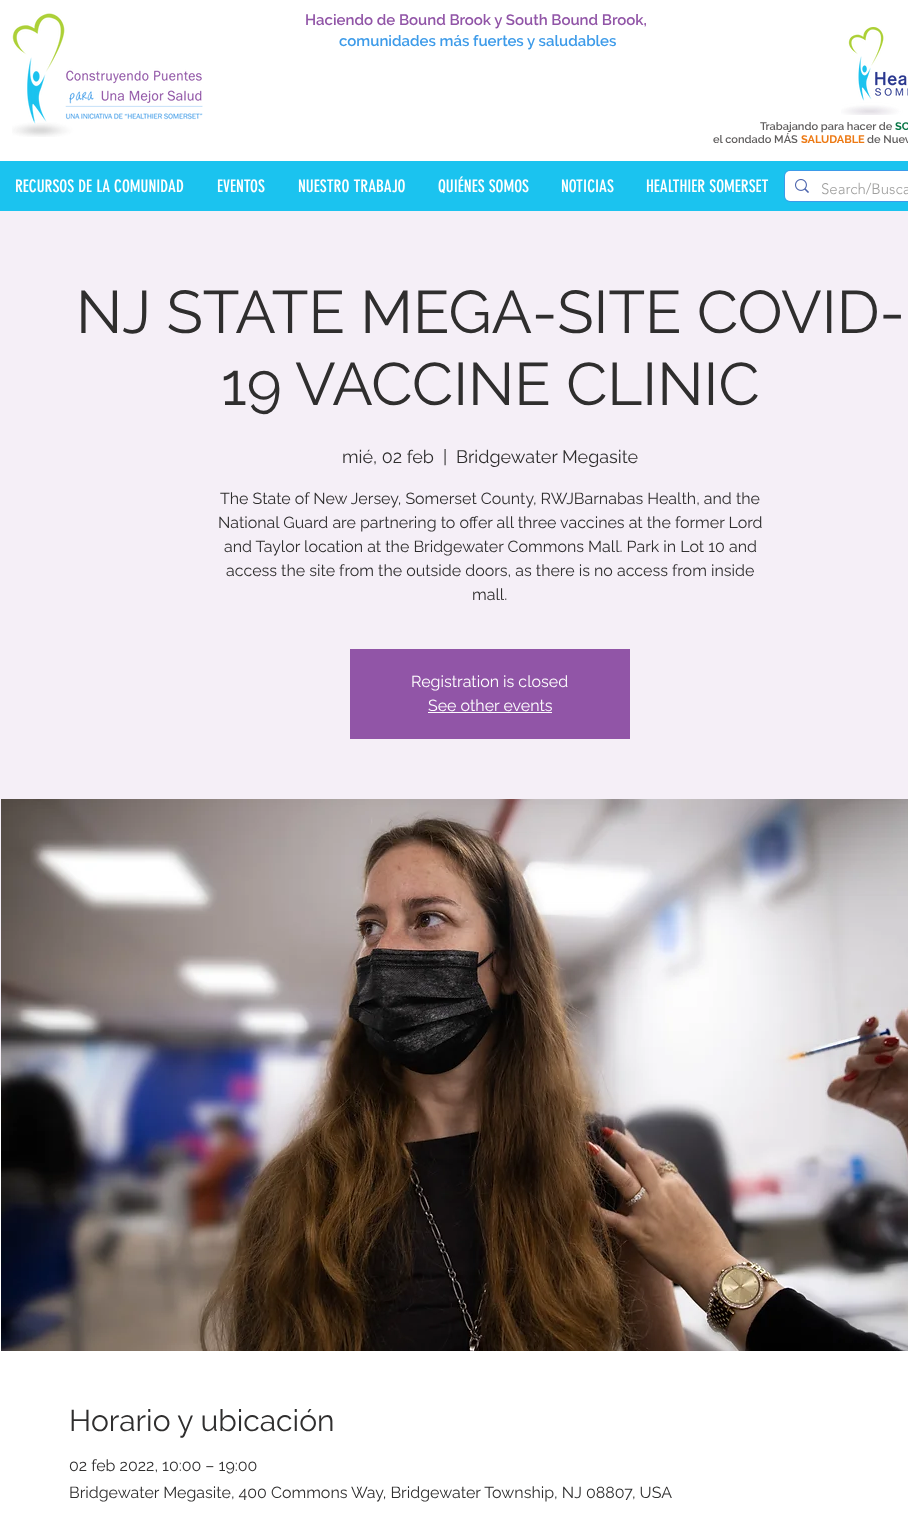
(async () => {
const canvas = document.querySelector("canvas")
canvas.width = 908
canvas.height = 1521
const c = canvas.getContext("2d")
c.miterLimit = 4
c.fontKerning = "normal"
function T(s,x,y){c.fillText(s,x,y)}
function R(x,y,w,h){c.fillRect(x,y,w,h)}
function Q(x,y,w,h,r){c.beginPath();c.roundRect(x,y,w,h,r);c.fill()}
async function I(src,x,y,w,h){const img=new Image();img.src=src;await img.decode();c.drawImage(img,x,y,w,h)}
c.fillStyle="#fff"
R(0,0,908,1521)
await I("1.png",12,13,191,124)
c.font="600 15px Raleway"
c.fillStyle="#9155a7"
T("Haciendo de Bound Brook y South Bound Brook,",305,25)
c.fillStyle="#3d9be9"
T("comunidades más fuertes y saludables",339,46)
await I("2.png",841,27,67,88)
c.font="600 11px Raleway"
c.fillStyle="#605e5e"
T("Trabajando para hacer de",760,130)
c.font="bold 11px Raleway"
c.fillStyle="#097747"
T("SO",895,130)
c.font="600 11px Raleway"
c.fillStyle="#605e5e"
T("el condado MÁS",713,143)
c.font="bold 11px Raleway"
c.fillStyle="#ed7a15"
T("SALUDABLE",801,143)
c.font="600 11px Raleway"
c.fillStyle="#605e5e"
T("de Nuev",867,143)
c.fillStyle="#1bc3ef"
R(0,161,908,50)
c.font="17px 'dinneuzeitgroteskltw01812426'"
c.fillStyle="#fff"
T("RECURSOS DE LA COMUNIDAD",15,192)
T("EVENTOS",217,192)
T("NUESTRO TRABAJO",298,192)
T("QUIÉNES SOMOS",438,192)
T("NOTICIAS",561,192)
T("HEALTHIER SOMERSET",646,192)
c.beginPath()
c.roundRect(784.5,170.5,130,31,5.5)
c.strokeStyle="#3d9be9"
c.stroke()
Q(785,171,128,30,5)
await I("3.png",795,179,14,14)
c.font="300 15px 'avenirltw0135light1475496'"
c.fillStyle="#a0a09f"
T("Search/Busca",821,194)
c.fillStyle="#f5eff7"
R(0,211,908,864)
c.font="60px Raleway"
c.fillStyle="#2f2e2e"
T("NJ STATE MEGA-SITE COVID-",76,333)
T("19 VACCINE CLINIC",221,405)
c.font="18px Raleway"
T("mié, 02 feb",342,463)
T("|",443,463)
T("Bridgewater Megasite",456,463)
c.font="16px Raleway"
T("The State of New Jersey, Somerset County, RWJBarnabas Health, and the",220,504)
T("National Guard are partnering to offer all three vaccines at the former Lord",218,528)
T("and Taylor location at the Bridgewater Commons Mall. Park in Lot 10 and",224,552)
T("access the site from the outside doors, as there is no access from inside",226,576)
T("mall.",472,600)
c.fillStyle="#9155a7"
R(350,649,280,90)
c.fillStyle="#fff"
T("Registration is closed",411,687)
T("See other events",428,711)
R(428,712,124,1)
await I("4.png",1,799,907,552)
c.font="30px Raleway"
c.fillStyle="#2f2e2e"
T("Horario y ubicación",69,1431)
c.font="16px Raleway"
T("02 feb 2022, 10:00 – 19:00",69,1471)
T("Bridgewater Megasite, 400 Commons Way, Bridgewater Township, NJ 08807, USA",69,1498)
})()
